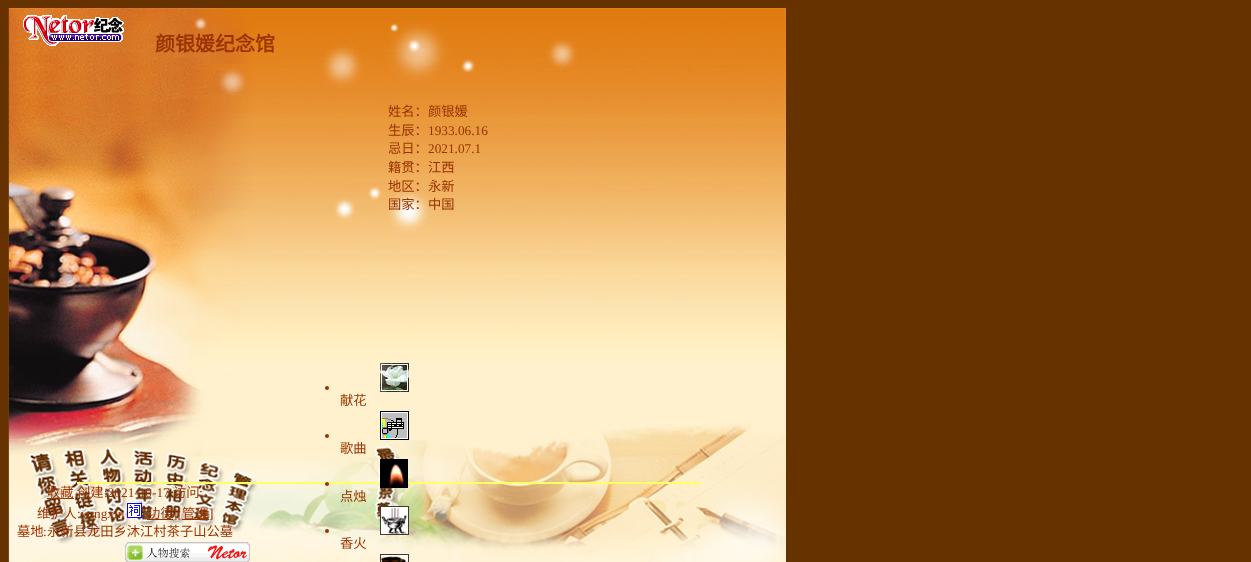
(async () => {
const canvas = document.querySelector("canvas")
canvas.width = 1251
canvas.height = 562
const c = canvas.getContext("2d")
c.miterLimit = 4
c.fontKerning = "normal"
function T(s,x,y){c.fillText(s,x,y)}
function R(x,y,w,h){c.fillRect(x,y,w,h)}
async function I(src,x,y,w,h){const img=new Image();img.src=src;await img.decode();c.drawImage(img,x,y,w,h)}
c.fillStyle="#630"
R(0,0,1251,562)
await I("1.png",8,8,778,554)
await I("2.png",23,15,101,31)
c.font="bold 20px Noto Sans CJK SC"
c.fillStyle="#930"
T("颜银媛纪念馆",155,51)
c.font="13.3px Noto Sans CJK SC"
T("姓名：颜银媛",388,116)
T("生辰：",388,135)
c.font="13.3px Liberation Serif"
T("1933.06.16",428,135)
c.font="13.3px Noto Sans CJK SC"
T("忌日：",388,153)
c.font="13.3px Liberation Serif"
T("2021.07.1",428,153)
c.font="13.3px Noto Sans CJK SC"
T("籍贯：江西",388,172)
T("地区：永新",388,191)
T("国家：中国",388,209)
c.fillStyle="#ff6"
R(77,482,624,2)
c.fillStyle="#930"
R(47,498,27,1)
T("收藏",47,497)
T("创建",77,497)
c.font="13.3px Liberation Serif"
T(":2021-10-17",104,497)
c.font="13.3px Noto Sans CJK SC"
T("访问",173,497)
c.font="13.3px Liberation Serif"
T(":",199,497)
c.font="13.3px Noto Sans CJK SC"
T("维护人",37,518)
c.font="13.3px Liberation Serif"
T(":yongxin",77,518)
await I("3.png",127,503,15,15)
R(147,519,26,1)
c.font="13.3px Noto Sans CJK SC"
T("功德",147,518)
c.font="13.3px Liberation Serif"
T("][",173,518)
R(182,519,27,1)
c.font="13.3px Noto Sans CJK SC"
T("管理",182,518)
c.font="13.3px Liberation Serif"
T("]",209,518)
c.font="13.3px Noto Sans CJK SC"
T("墓地",17,536)
c.font="13.3px Liberation Serif"
T(":",43,536)
c.font="13.3px Noto Sans CJK SC"
T("永新县龙田乡沐江村茶子山公墓",47,536)
await I("4.png",125,542,125,20)
c.beginPath()
c.arc(327,388,2,0,7)
c.fill()
await I("5.png",380,363,29,29)
T("献花",340,405)
c.beginPath()
c.arc(327,436,2,0,7)
c.fill()
await I("6.png",380,411,29,29)
T("歌曲",340,453)
c.beginPath()
c.arc(327,484,2,0,7)
c.fill()
await I("7.png",380,459,28,29)
T("点烛",340,501)
c.beginPath()
c.arc(327,531,2,0,7)
c.fill()
await I("8.png",380,506,29,29)
T("香火",340,548)
await I("9.png",380,554,29,8)
})()
